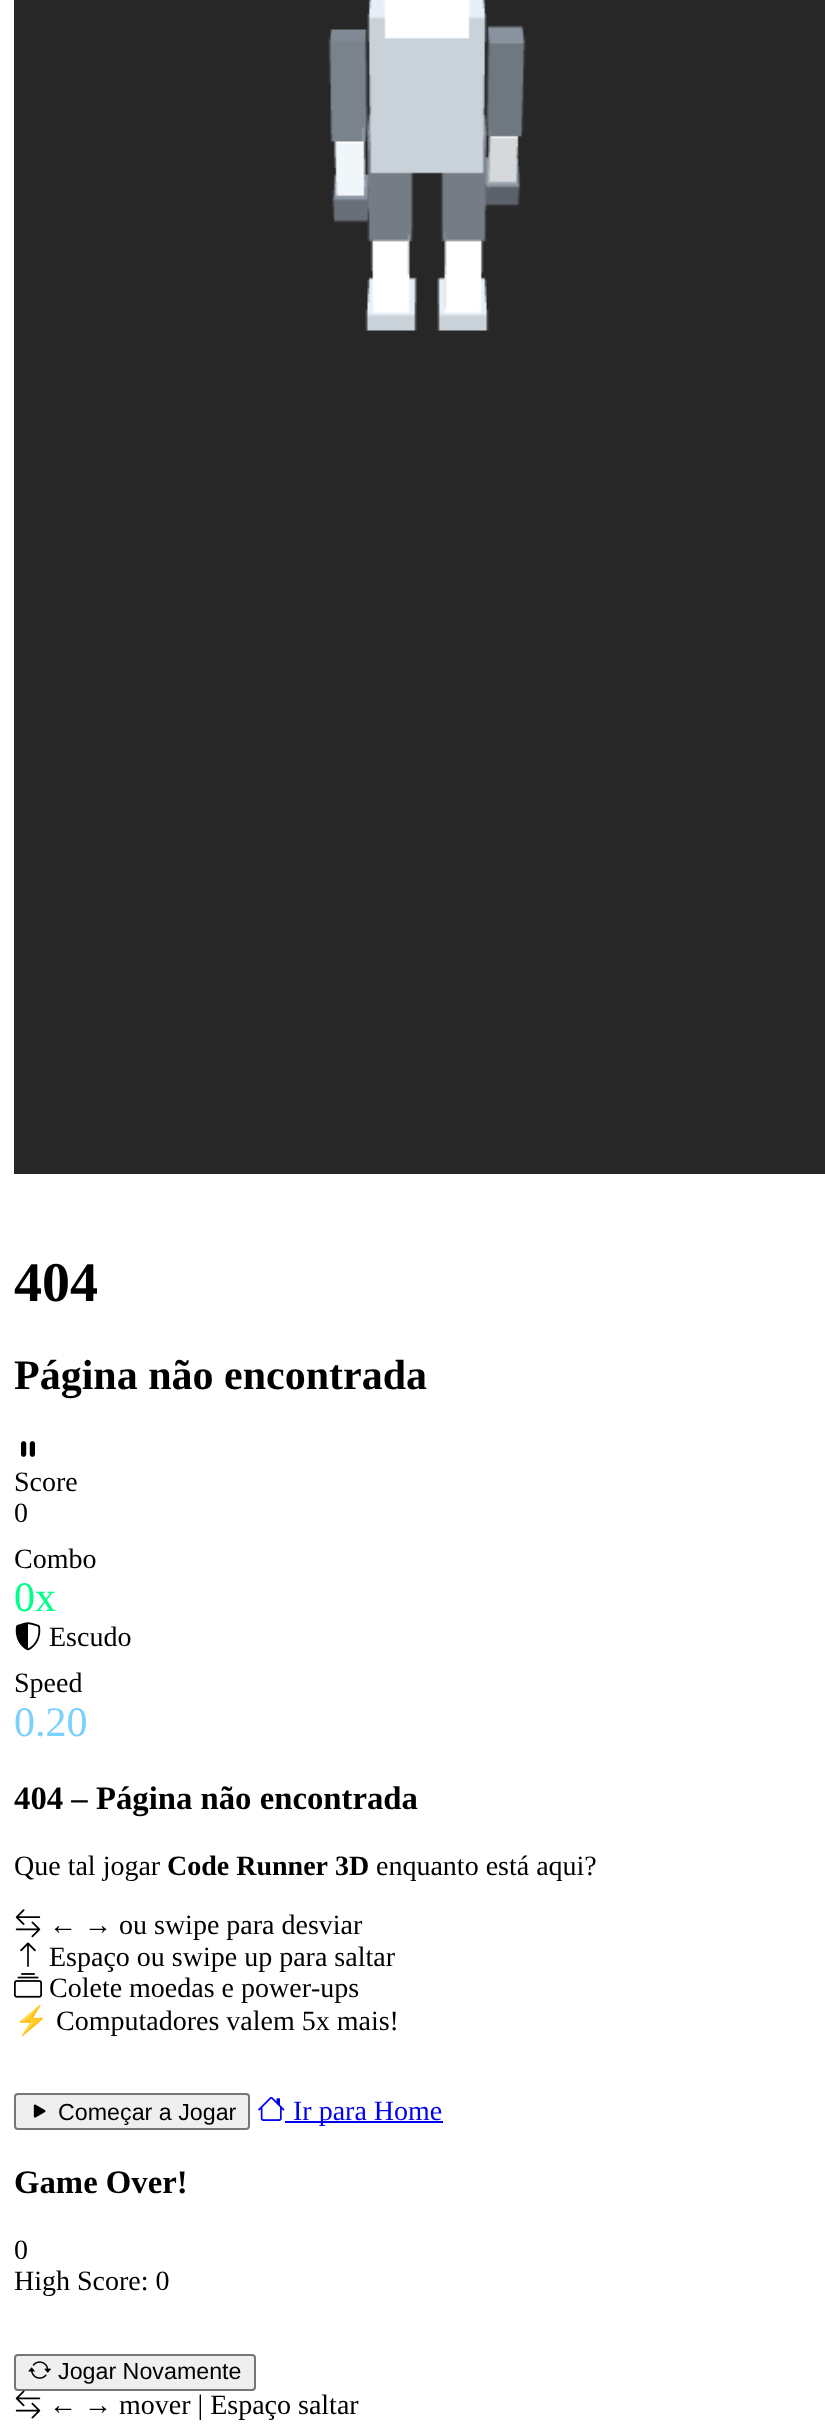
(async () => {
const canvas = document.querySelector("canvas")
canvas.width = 825
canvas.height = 2436
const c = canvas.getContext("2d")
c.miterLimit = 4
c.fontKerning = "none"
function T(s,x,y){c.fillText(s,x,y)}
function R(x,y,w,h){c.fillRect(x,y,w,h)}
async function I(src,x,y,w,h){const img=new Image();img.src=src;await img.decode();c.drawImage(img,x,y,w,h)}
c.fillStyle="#fff"
R(0,0,825,2436)
await I("1.png",14,0,811,1174)
c.font="bold 56px Liberation Serif"
c.fillStyle="#000"
T("404",14,1301)
c.font="bold 42px Liberation Serif"
T("Página não encontrada",14,1389)
await I("2.png",21,1441,14,16)
c.font="28px Liberation Serif"
T("Score",14,1491)
T("0",14,1522)
T("Combo",14,1568)
c.font="42px Liberation Serif"
c.fillStyle="#0f8"
T("0x",14,1611)
await I("3.png",15,1622,26,29)
c.font="28px Liberation Serif"
c.fillStyle="#000"
T("Escudo",49,1646)
T("Speed",14,1692)
c.font="42px Liberation Serif"
c.fillStyle="#7ad1ff"
T("0.20",14,1736)
c.font="bold 32.75px Liberation Serif"
c.fillStyle="#000"
T("404 – Página não encontrada",14,1809)
c.font="28px Liberation Serif"
T("Que tal jogar",14,1875)
c.font="bold 28px Liberation Serif"
T("Code Runner 3D",167,1875)
c.font="28px Liberation Serif"
T("enquanto está aqui?",376,1875)
await I("4.png",15,1909,26,29)
T("← → ou swipe para desviar",49,1934)
await I("5.png",20,1942,16,25)
T("Espaço ou swipe up para saltar",49,1966)
await I("6.png",14,1973,28,25)
T("Colete moedas e power-ups",49,1997)
c.font="28px Noto Color Emoji"
T("⚡",14,2030)
c.font="28px Liberation Serif"
T("Computadores valem 5x mais!",56,2030)
c.fillStyle="#efefef"
c.beginPath()
c.roundRect(15,2094,234,35,3)
c.fill()
c.strokeStyle="#767676"
c.lineWidth=2
c.stroke()
await I("7.png",33,2104,13,14)
c.font="23.25px Liberation Sans"
c.fillStyle="#000"
T("Começar a Jogar",58,2120)
await I("8.png",258,2096,27,25)
c.fillStyle="#00e"
R(285,2121,158,2)
c.font="28px Liberation Serif"
T("Ir para Home",293,2120)
c.font="bold 32.75px Liberation Serif"
c.fillStyle="#000"
T("Game Over!",14,2193)
c.font="28px Liberation Serif"
T("0",14,2259)
T("High Score: 0",14,2290)
c.fillStyle="#efefef"
c.beginPath()
c.roundRect(15,2355,240,35,3)
c.fill()
c.stroke()
await I("9.png",28,2361,23,18)
c.font="23.25px Liberation Sans"
c.fillStyle="#000"
T("Jogar Novamente",58,2379)
await I("10.png",15,2390,26,29)
c.font="28px Liberation Serif"
T("← → mover | Espaço saltar",49,2414)
})()
